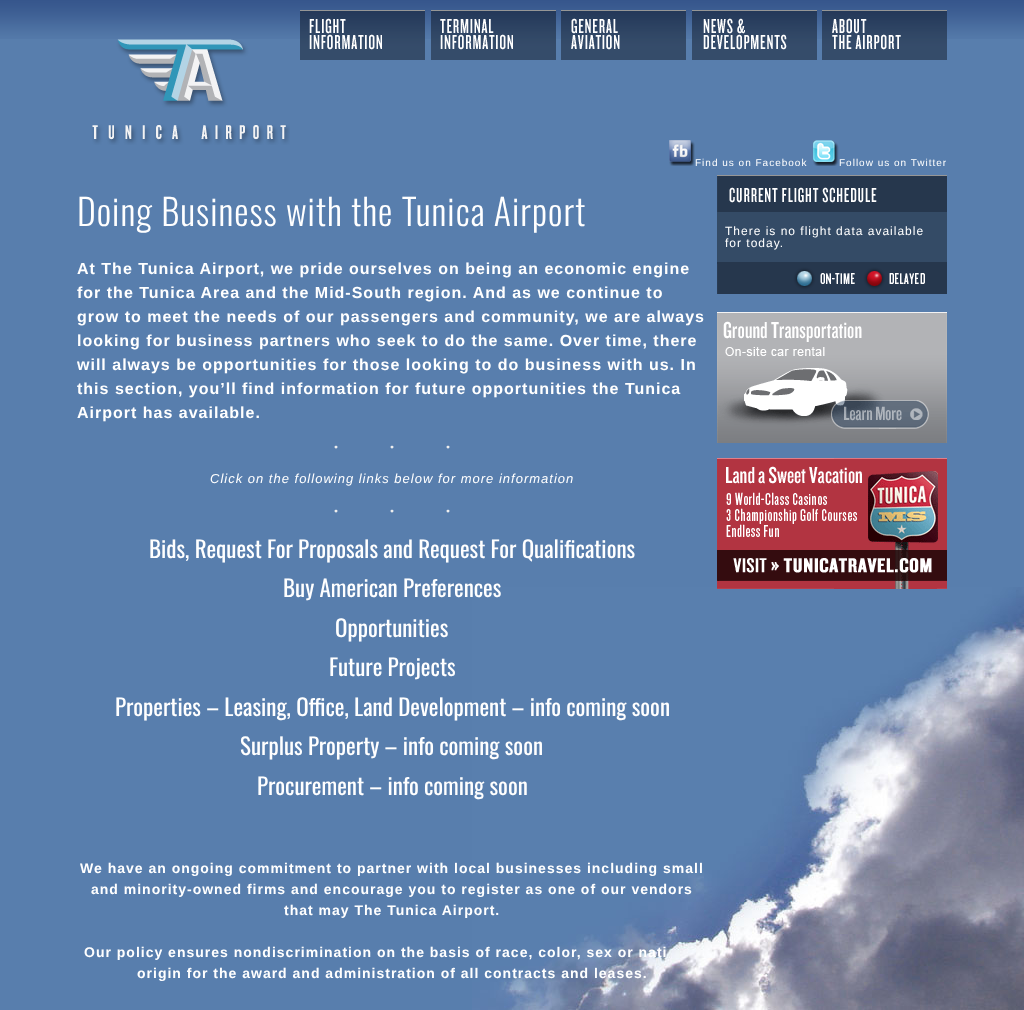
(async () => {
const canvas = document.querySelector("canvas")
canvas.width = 1024
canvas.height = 1010
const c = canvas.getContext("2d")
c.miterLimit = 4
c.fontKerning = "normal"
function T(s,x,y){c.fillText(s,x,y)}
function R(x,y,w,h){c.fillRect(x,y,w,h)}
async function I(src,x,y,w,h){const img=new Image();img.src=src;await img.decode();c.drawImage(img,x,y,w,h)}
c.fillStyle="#587ead"
R(0,0,1024,1010)
await I("1.png",472,587,552,423)
await I("2.png",0,0,1024,39)
await I("3.png",92,39,198,106)
await I("4.png",300,10,125,50)
await I("5.png",431,10,125,50)
await I("6.png",561,10,125,50)
await I("7.png",692,10,125,50)
await I("8.png",822,10,125,50)
await I("9.png",669,140,26,26)
c.letterSpacing="1px"
c.font="10px Liberation Sans"
c.fillStyle="#fff"
T("Find us on Facebook",695,166)
await I("10.png",813,140,26,26)
T("Follow us on Twitter",839,166)
c.font="300 36px Oswald"
T("Doing Business with the Tunica Airport",77,226)
c.font="bold 16px Liberation Sans"
T("At The Tunica Airport, we pride ourselves on being an economic engine",77,274)
T("for the Tunica Area and the Mid-South region. And as we continue to",77,298)
T("grow to meet the needs of our passengers and community, we are always",77,322)
T("looking for business partners who seek to do the same. Over time, there",77,346)
T("will always be opportunities for those looking to do business with us. In",77,370)
T("this section, you’ll find information for future opportunities the Tunica",77,394)
T("Airport has available.",77,418)
c.letterSpacing="48px"
c.font="24px Liberation Serif"
c.fillStyle="#eee"
T("···",332,455)
c.letterSpacing="1px"
c.font="italic 13px Liberation Sans"
c.fillStyle="#fff"
T("Click on the following links below for more information",210,483)
c.letterSpacing="48px"
c.font="24px Liberation Serif"
c.fillStyle="#eee"
T("···",332,519)
c.letterSpacing="0px"
c.font="23px Oswald"
c.fillStyle="#fff"
T("Bids, Request For Proposals and Request For Qualifications",149,558)
T("Buy American Preferences",283,597)
T("Opportunities",335,637)
T("Future Projects",329,676)
T("Properties – Leasing, Office, Land Development – info coming soon",115,716)
T("Surplus Property – info coming soon",240,755)
T("Procurement – info coming soon",257,795)
c.letterSpacing="1px"
c.font="bold 14px Liberation Sans"
T("We have an ongoing commitment to partner with local businesses including small",80,873)
T("and minority-owned firms and encourage you to register as one of our vendors",91,894)
T("that may The Tunica Airport.",284,915)
T("Our policy ensures nondiscrimination on the basis of race, color, sex or nati",84,957)
T("origin for the award and administration of all contracts and leases.",137,978)
await I("11.png",717,175,230,37)
c.fillStyle="#344b66"
R(717,212,230,50)
c.font="12px Liberation Sans"
c.fillStyle="#fff"
T("There is no flight data available",725,235)
T("for today.",725,247)
await I("12.png",717,262,230,32)
await I("13.png",717,312,230,131)
await I("14.png",717,458,230,131)
})()
